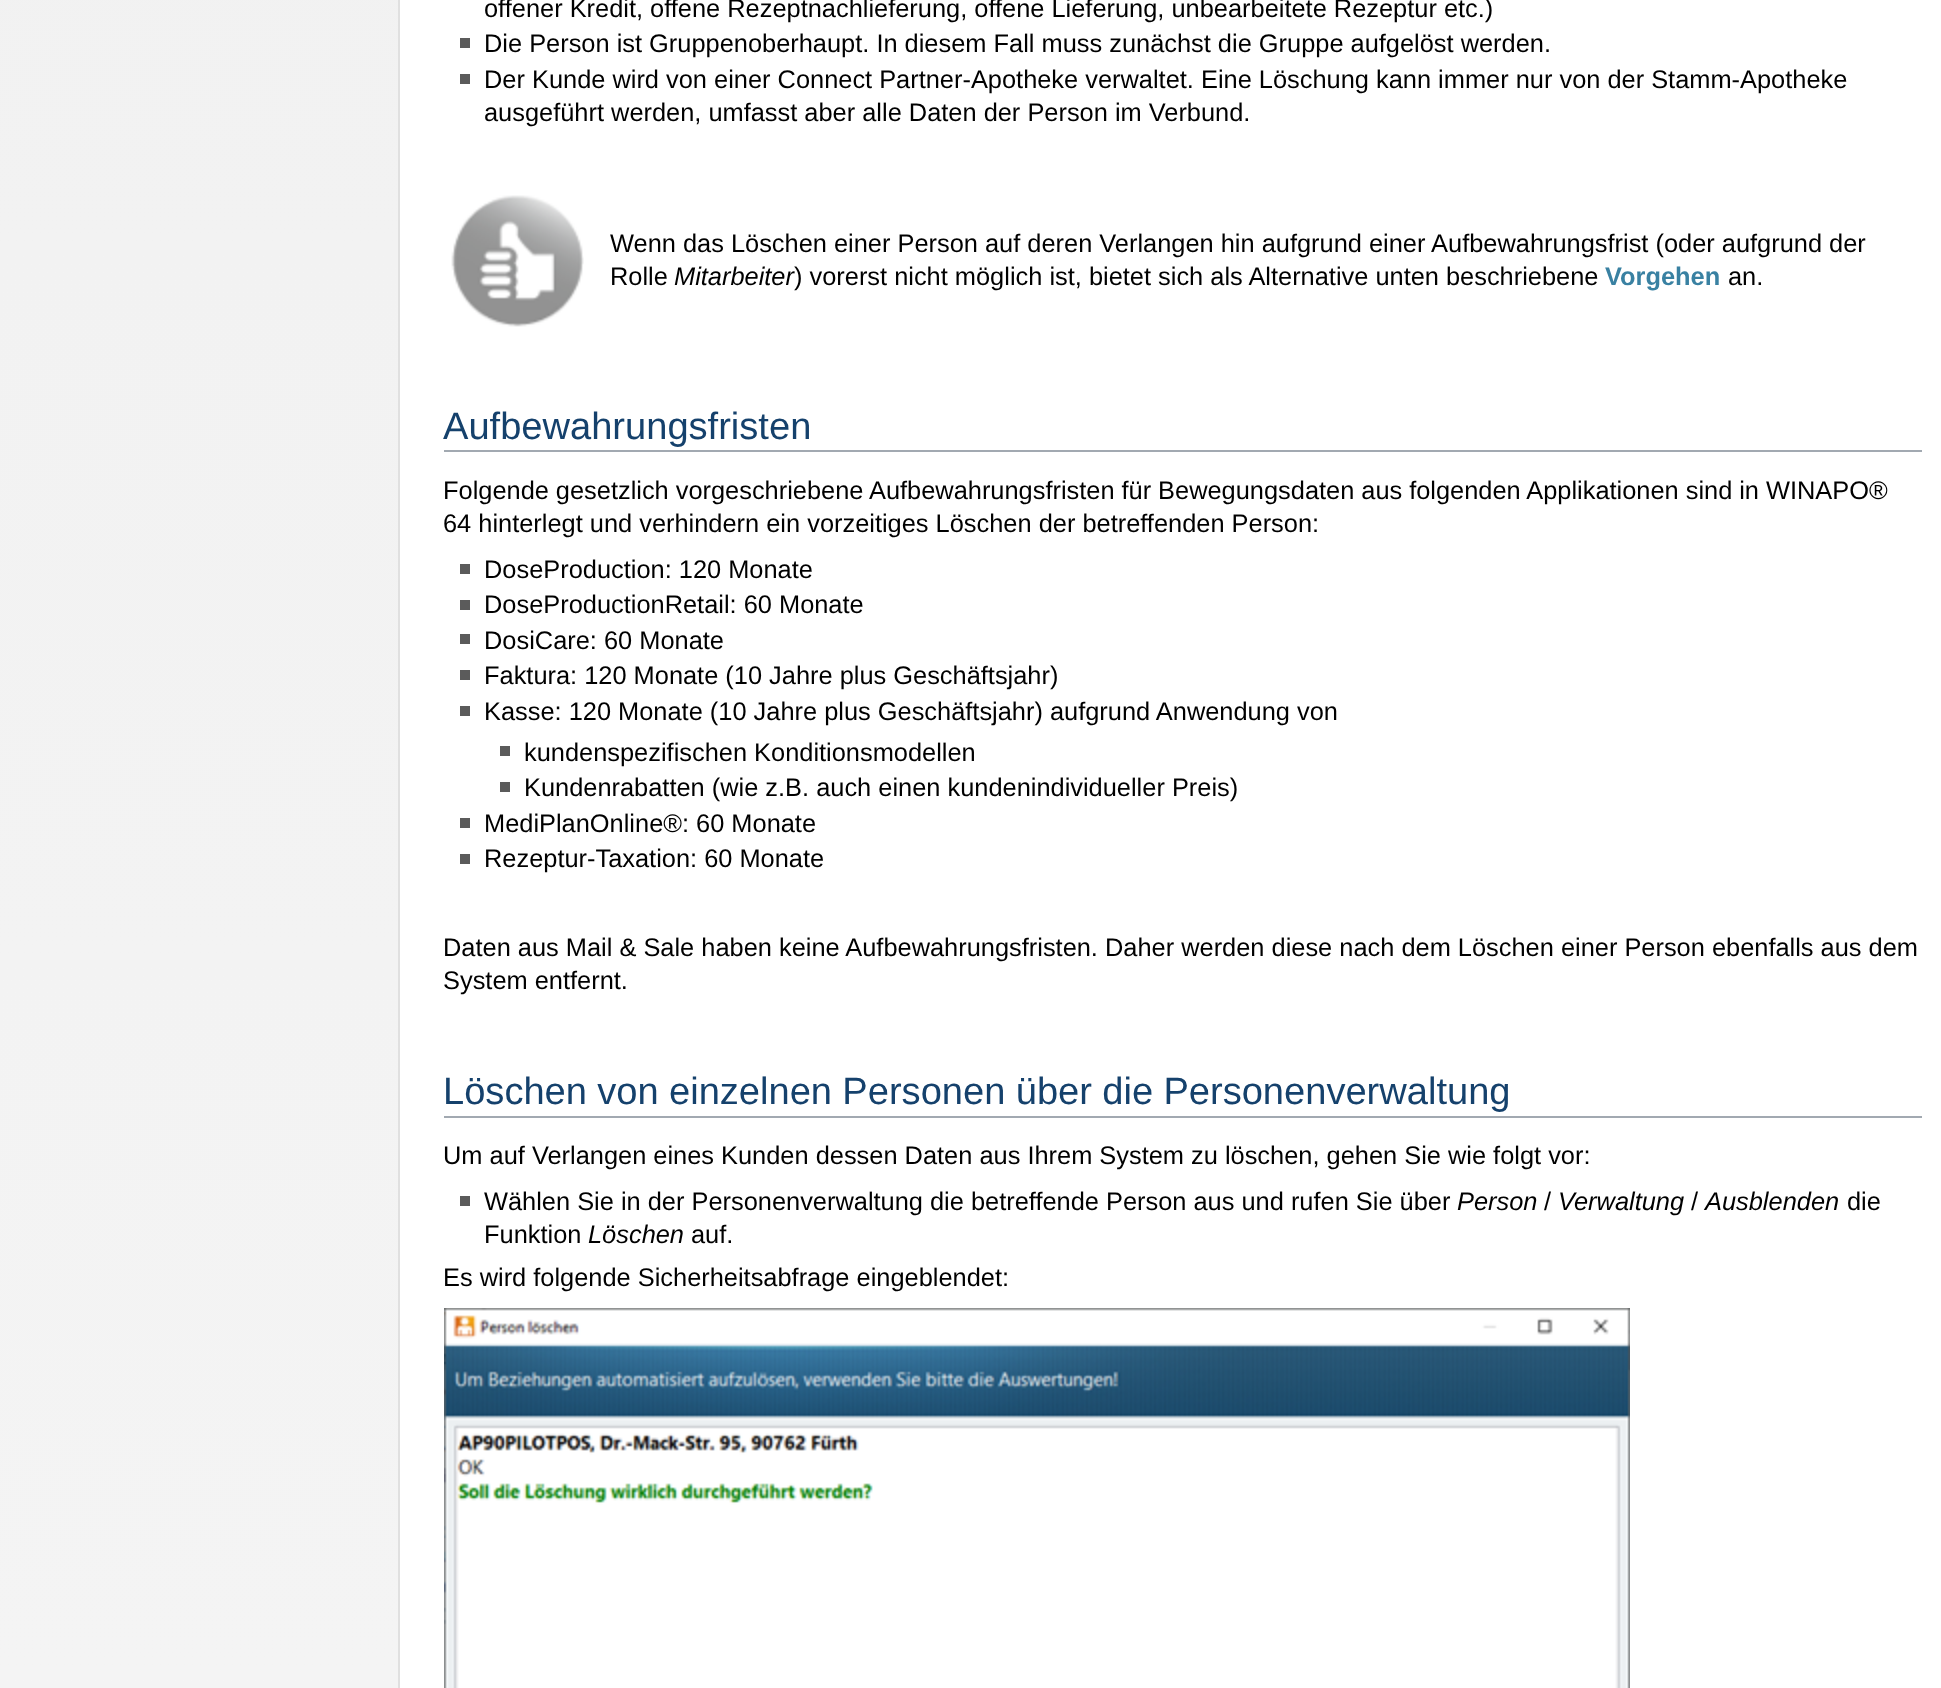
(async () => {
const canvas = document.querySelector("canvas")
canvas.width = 1941
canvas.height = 1688
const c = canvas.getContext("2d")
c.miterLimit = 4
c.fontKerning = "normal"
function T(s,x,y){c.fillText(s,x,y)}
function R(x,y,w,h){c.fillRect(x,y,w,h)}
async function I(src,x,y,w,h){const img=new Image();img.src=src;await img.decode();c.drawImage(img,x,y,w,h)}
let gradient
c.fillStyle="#fff"
R(0,0,1941,1688)
gradient = c.createLinearGradient(199,-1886,199,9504)
gradient.addColorStop(0,"#efefef")
gradient.addColorStop(1,"#fff")
c.fillStyle = gradient
R(0,0,398,1688)
c.fillStyle="#e0e0e0"
R(398,0,2,1688)
c.font="25.4px Liberation Sans"
c.fillStyle="#000"
T("offener Kredit, offene Rezeptnachlieferung, offene Lieferung, unbearbeitete Rezeptur etc.)",484,17)
c.fillStyle="#5b5b5b"
R(460,38,10,10)
c.fillStyle="#000"
T("Die Person ist Gruppenoberhaupt. In diesem Fall muss zunächst die Gruppe aufgelöst werden.",484,52)
c.fillStyle="#5b5b5b"
R(460,74,10,10)
c.fillStyle="#000"
T("Der Kunde wird von einer Connect Partner-Apotheke verwaltet. Eine Löschung kann immer nur von der Stamm-Apotheke",484,88)
T("ausgeführt werden, umfasst aber alle Daten der Person im Verbund.",484,121)
await I("1.png",451,195,133,132)
T("Wenn das Löschen einer Person auf deren Verlangen hin aufgrund einer Aufbewahrungsfrist (oder aufgrund der",610,252)
T("Rolle",610,285)
c.font="italic 25.4px Liberation Sans"
T("Mitarbeiter",674,285)
c.font="25.4px Liberation Sans"
T(") vorerst nicht möglich ist, bietet sich als Alternative unten beschriebene",794,285)
c.font="bold 25.4px Liberation Sans"
c.fillStyle="#3981a2"
T("Vorgehen",1605,285)
c.font="25.4px Liberation Sans"
c.fillStyle="#000"
T("an.",1728,285)
c.fillStyle="#a2a9b1"
R(444,450,1478,2)
c.font="38.1px Liberation Sans"
c.fillStyle="#15416c"
T("Aufbewahrungsfristen",443,439)
c.wordSpacing="-0.1px"
c.font="25.4px Liberation Sans"
c.fillStyle="#000"
T("Folgende gesetzlich vorgeschriebene Aufbewahrungsfristen für Bewegungsdaten aus folgenden Applikationen sind in WINAPO®",443,499)
c.wordSpacing="0px"
T("64 hinterlegt und verhindern ein vorzeitiges Löschen der betreffenden Person:",443,532)
c.fillStyle="#5b5b5b"
R(460,564,10,10)
c.fillStyle="#000"
T("DoseProduction: 120 Monate",484,578)
c.fillStyle="#5b5b5b"
R(460,600,10,10)
c.fillStyle="#000"
T("DoseProductionRetail: 60 Monate",484,613)
c.fillStyle="#5b5b5b"
R(460,634,10,10)
c.fillStyle="#000"
T("DosiCare: 60 Monate",484,649)
c.fillStyle="#5b5b5b"
R(460,670,10,10)
c.fillStyle="#000"
T("Faktura: 120 Monate (10 Jahre plus Geschäftsjahr)",484,684)
c.fillStyle="#5b5b5b"
R(460,706,10,10)
c.fillStyle="#000"
T("Kasse: 120 Monate (10 Jahre plus Geschäftsjahr) aufgrund Anwendung von",484,720)
c.fillStyle="#5b5b5b"
R(500,746,10,10)
c.fillStyle="#000"
T("kundenspezifischen Konditionsmodellen",524,761)
c.fillStyle="#5b5b5b"
R(500,782,10,10)
c.fillStyle="#000"
T("Kundenrabatten (wie z.B. auch einen kundenindividueller Preis)",524,796)
c.fillStyle="#5b5b5b"
R(460,818,10,10)
c.fillStyle="#000"
T("MediPlanOnline®: 60 Monate",484,832)
c.fillStyle="#5b5b5b"
R(460,854,10,10)
c.fillStyle="#000"
T("Rezeptur-Taxation: 60 Monate",484,867)
T("Daten aus Mail & Sale haben keine Aufbewahrungsfristen. Daher werden diese nach dem Löschen einer Person ebenfalls aus dem",443,956)
T("System entfernt.",443,989)
c.fillStyle="#a2a9b1"
R(444,1116,1478,2)
c.wordSpacing="-0.25px"
c.font="38.1px Liberation Sans"
c.fillStyle="#15416c"
T("Löschen von einzelnen Personen über die Personenverwaltung",443,1104)
c.wordSpacing="0px"
c.font="25.4px Liberation Sans"
c.fillStyle="#000"
T("Um auf Verlangen eines Kunden dessen Daten aus Ihrem System zu löschen, gehen Sie wie folgt vor:",443,1164)
c.fillStyle="#5b5b5b"
R(460,1196,10,10)
c.fillStyle="#000"
T("Wählen Sie in der Personenverwaltung die betreffende Person aus und rufen Sie über",484,1210)
c.font="italic 25.4px Liberation Sans"
T("Person",1457,1210)
c.font="25.4px Liberation Sans"
T("/",1544,1210)
c.font="italic 25.4px Liberation Sans"
T("Verwaltung",1558,1210)
c.font="25.4px Liberation Sans"
T("/",1691,1210)
c.font="italic 25.4px Liberation Sans"
T("Ausblenden",1705,1210)
c.font="25.4px Liberation Sans"
T("die",1847,1210)
T("Funktion",484,1243)
c.font="italic 25.4px Liberation Sans"
T("Löschen",588,1243)
c.font="25.4px Liberation Sans"
T("auf.",691,1243)
T("Es wird folgende Sicherheitsabfrage eingeblendet:",443,1286)
await I("2.png",444,1308,1186,380)
})()
